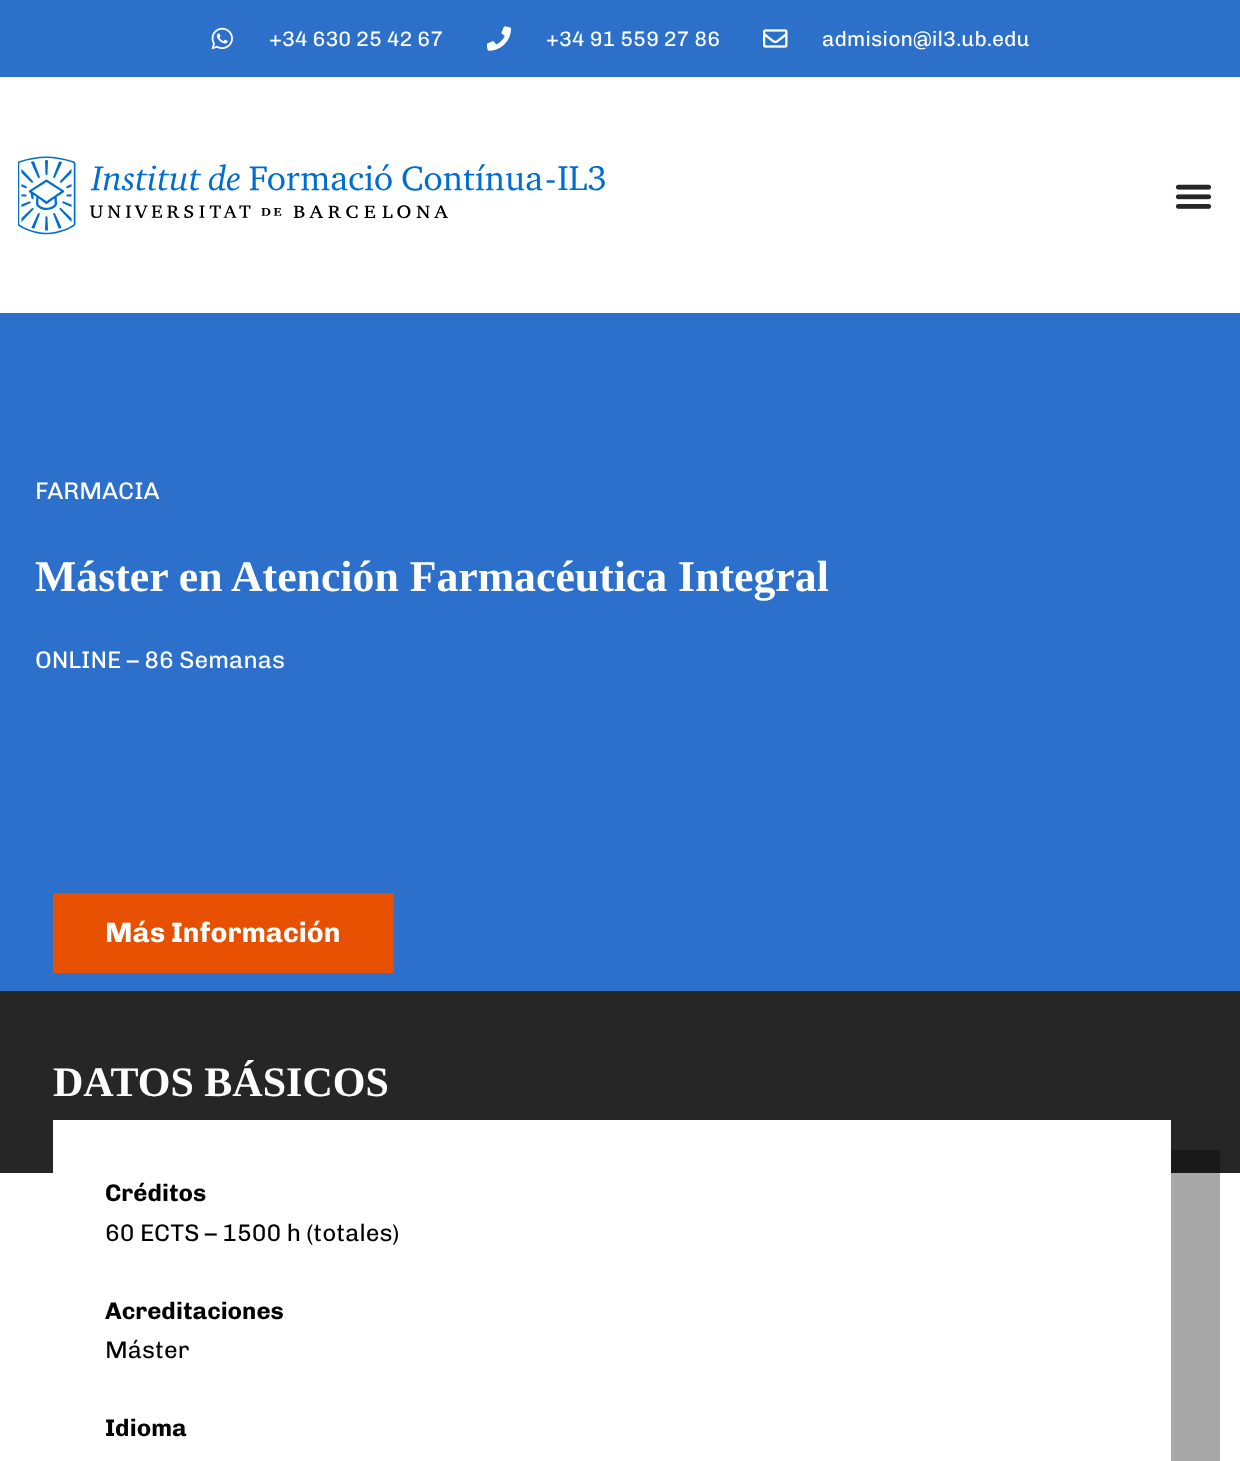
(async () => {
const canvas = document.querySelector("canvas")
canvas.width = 1240
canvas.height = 1461
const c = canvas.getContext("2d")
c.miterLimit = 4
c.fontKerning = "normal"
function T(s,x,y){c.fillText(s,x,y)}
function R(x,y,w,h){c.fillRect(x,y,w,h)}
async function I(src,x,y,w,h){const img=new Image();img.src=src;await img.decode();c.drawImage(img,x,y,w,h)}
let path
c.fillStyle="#fff"
R(0,0,1240,1461)
c.fillStyle="#2c70ca"
R(0,0,1240,77)
await I("1.png",211,27,22,23)
c.font="21px Chivo"
c.fillStyle="#fff"
T("+34 630 25 42 67",269,46)
await I("2.png",487,26,24,25)
T("+34 91 559 27 86",546,46)
await I("3.png",763,29,25,19)
T("admision@il3.ub.edu",822,46)
await I("4.png",18,156,587,79)
await I("5.png",1175,184,37,25)
c.fillStyle="#2d70cb"
R(0,313,1240,678)
c.font="24px Chivo"
c.fillStyle="#fff"
T("FARMACIA",35,499)
c.font="bold 43.75px Liberation Serif"
T("Máster en Atención Farmacéutica Integral",35,591)
c.font="24px Chivo"
T("ONLINE – 86 Semanas",35,668)
c.fillStyle="#e75000"
R(53,893,341,80)
c.font="bold 28px Chivo"
c.fillStyle="#fff"
T("Más Información",105,942)
c.fillStyle="#262626"
R(0,991,1240,182)
c.font="bold 42px Liberation Serif"
c.fillStyle="#fff"
T("DATOS BÁSICOS",53,1096)
c.fillStyle="#00000057"
path = new Path2D("M91 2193v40h1129v-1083h-49v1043z")
c.fill(path)
c.fillStyle="#fff"
R(53,1120,1118,53)
c.font="bold 24px Chivo"
c.fillStyle="#000"
T("Créditos",105,1201)
c.font="24px Chivo"
T("60 ECTS – 1500 h (totales)",105,1241)
c.font="bold 24px Chivo"
T("Acreditaciones",105,1319)
c.font="24px Chivo"
T("Máster",105,1358)
c.font="bold 24px Chivo"
T("Idioma",105,1436)
})()
